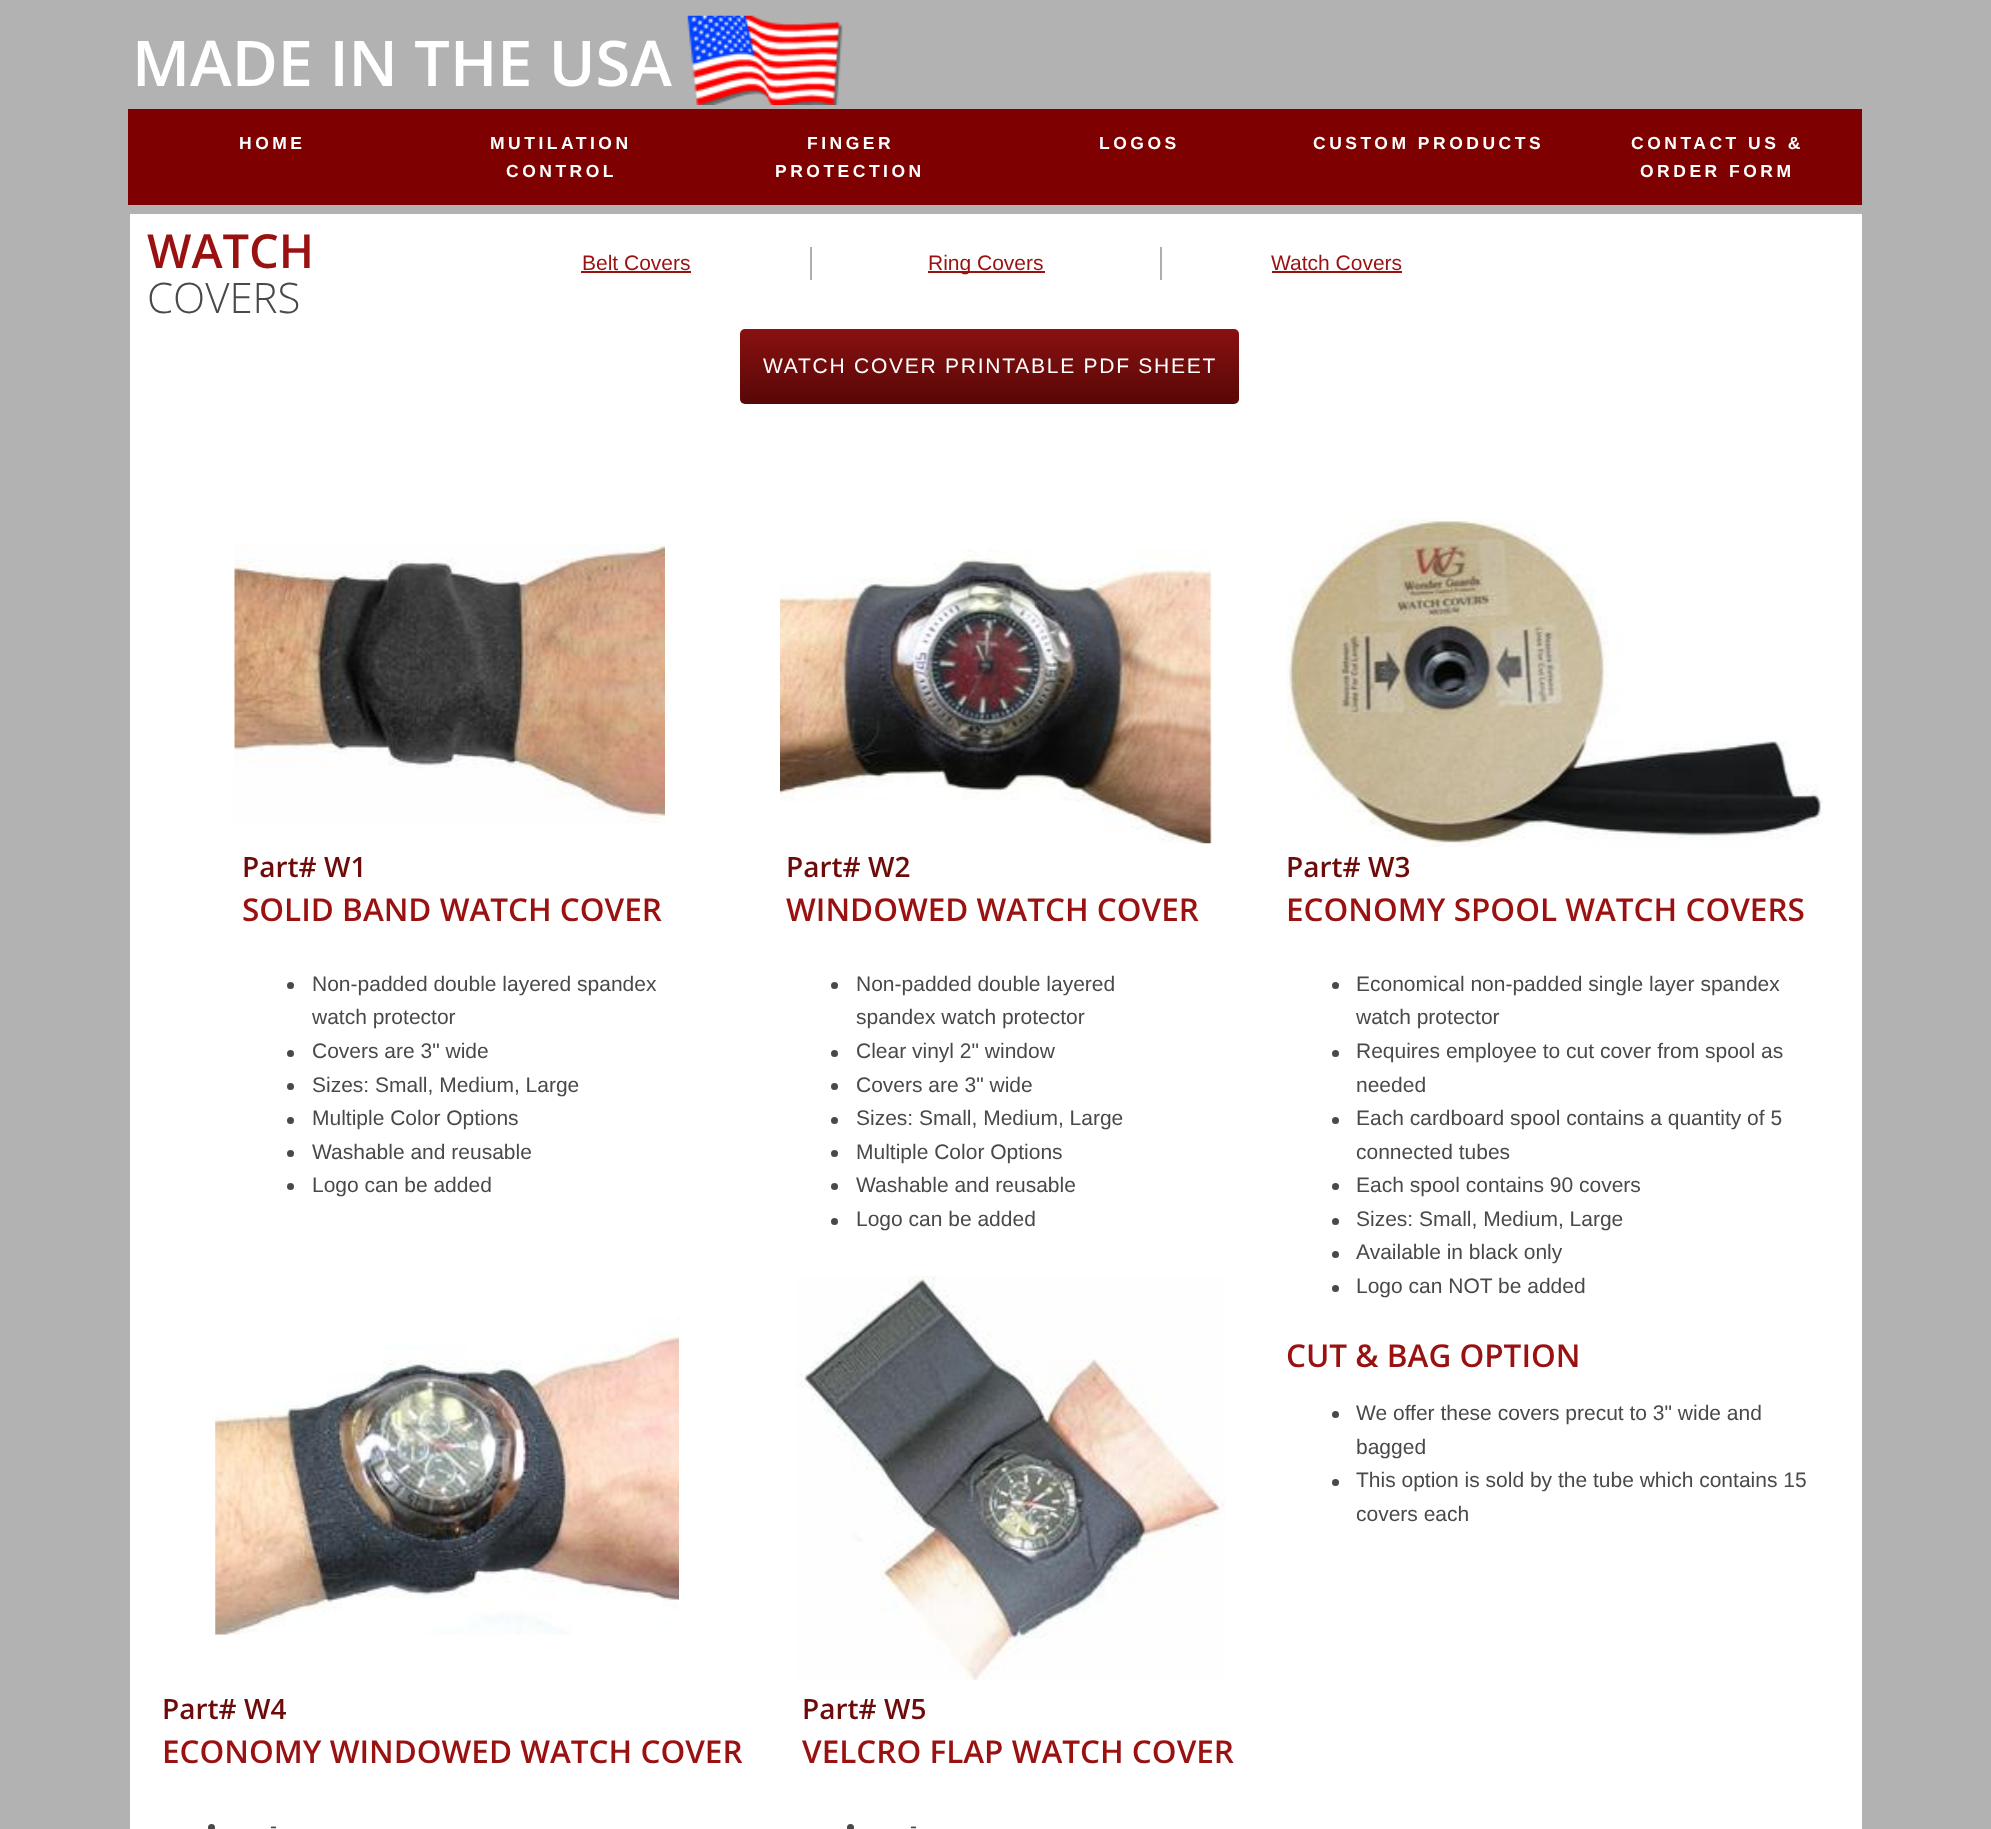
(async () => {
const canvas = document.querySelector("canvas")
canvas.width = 1991
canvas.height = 1829
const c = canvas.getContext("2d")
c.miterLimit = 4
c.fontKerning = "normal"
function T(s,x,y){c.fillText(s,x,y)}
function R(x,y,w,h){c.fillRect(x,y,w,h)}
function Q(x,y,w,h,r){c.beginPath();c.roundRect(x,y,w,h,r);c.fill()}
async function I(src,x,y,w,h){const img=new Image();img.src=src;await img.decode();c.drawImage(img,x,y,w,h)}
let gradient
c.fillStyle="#b2b2b2"
R(0,0,1991,1829)
c.fillStyle="#fff"
R(130,214,1732,1615)
c.font="600 63px Open Sans"
T("MADE IN THE USA",132,86)
await I("1.png",687,15,156,90)
c.fillStyle="#7f0000"
R(128,109,1734,96)
c.letterSpacing="3.5px"
c.font="bold 17.5px Liberation Sans"
c.fillStyle="#fff"
T("HOME",239,149)
T("MUTILATION",490,149)
T("CONTROL",506,177)
T("FINGER",807,149)
T("PROTECTION",775,177)
T("LOGOS",1099,149)
T("CUSTOM PRODUCTS",1313,149)
T("CONTACT US &",1631,149)
T("ORDER FORM",1640,177)
c.letterSpacing="0px"
c.font="600 47px Open Sans"
c.fillStyle="#911"
T("WATCH",147,268)
c.font="300 42px Open Sans"
c.fillStyle="#494949"
T("COVERS",147,313)
c.fillStyle="#aeaeae"
R(810,247,2,33)
c.font="21px Liberation Sans"
c.fillStyle="#911"
T("Belt Covers",582,270)
R(581,271,110,2)
c.fillStyle="#aeaeae"
R(1160,247,2,33)
c.fillStyle="#911"
R(928,271,117,2)
T("Ring Covers",928,270)
T("Watch Covers",1271,270)
R(1272,271,130,2)
c.save()
c.beginPath()
c.roundRect(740,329,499,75,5)
c.clip()
c.fillStyle="#00000099"
c.filter="blur(13px)"
c.beginPath()
c.roundRect(758,329,464,75,18)
c.fill()
c.filter="none"
c.restore()
gradient = c.createLinearGradient(990,329,990,404)
gradient.addColorStop(0,"#891111")
gradient.addColorStop(1,"#580707")
c.fillStyle = gradient
Q(740,329,499,75,5)
c.letterSpacing="1.75px"
c.fillStyle="#fff"
T("WATCH COVER PRINTABLE PDF SHEET",763,373)
await I("2.png",234,544,431,280)
await I("3.png",780,549,432,295)
await I("4.png",1286,518,537,329)
c.letterSpacing="0px"
c.font="600 28px Open Sans"
c.fillStyle="#6d0b0b"
T("Part# W1",242,877)
c.font="600 31.5px Open Sans"
c.fillStyle="#911"
T("SOLID BAND WATCH COVER",242,921)
c.fillStyle="#494949"
c.beginPath()
c.arc(290.5,985.5,3.5,0,7)
c.fill()
c.font="21px Liberation Sans"
T("Non-padded double layered spandex",312,991)
T("watch protector",312,1024)
c.beginPath()
c.arc(290.5,1053.5,3.5,0,7)
c.fill()
T("Covers are 3\" wide",312,1058)
c.beginPath()
c.arc(290.5,1086.5,3.5,0,7)
c.fill()
T("Sizes: Small, Medium, Large",312,1092)
c.beginPath()
c.arc(290.5,1120.5,3.5,0,7)
c.fill()
T("Multiple Color Options",312,1125)
c.beginPath()
c.arc(290.5,1153.5,3.5,0,7)
c.fill()
T("Washable and reusable",312,1159)
c.beginPath()
c.arc(290.5,1186.5,3.5,0,7)
c.fill()
T("Logo can be added",312,1192)
c.font="600 28px Open Sans"
c.fillStyle="#6d0b0b"
T("Part# W2",786,877)
c.font="600 31.5px Open Sans"
c.fillStyle="#911"
T("WINDOWED WATCH COVER",786,921)
c.fillStyle="#494949"
c.beginPath()
c.arc(834.5,985.5,3.5,0,7)
c.fill()
c.font="21px Liberation Sans"
T("Non-padded double layered",856,991)
T("spandex watch protector",856,1024)
c.beginPath()
c.arc(834.5,1053.5,3.5,0,7)
c.fill()
T("Clear vinyl 2\" window",856,1058)
c.beginPath()
c.arc(834.5,1086.5,3.5,0,7)
c.fill()
T("Covers are 3\" wide",856,1092)
c.beginPath()
c.arc(834.5,1120.5,3.5,0,7)
c.fill()
T("Sizes: Small, Medium, Large",856,1125)
c.beginPath()
c.arc(834.5,1153.5,3.5,0,7)
c.fill()
T("Multiple Color Options",856,1159)
c.beginPath()
c.arc(834.5,1186.5,3.5,0,7)
c.fill()
T("Washable and reusable",856,1192)
c.beginPath()
c.arc(834.5,1221.5,3.5,0,7)
c.fill()
T("Logo can be added",856,1226)
c.font="600 28px Open Sans"
c.fillStyle="#6d0b0b"
T("Part# W3",1286,877)
c.font="600 31.5px Open Sans"
c.fillStyle="#911"
T("ECONOMY SPOOL WATCH COVERS",1286,921)
c.fillStyle="#494949"
c.beginPath()
c.arc(1335.5,985.5,3.5,0,7)
c.fill()
c.font="21px Liberation Sans"
T("Economical non-padded single layer spandex",1356,991)
T("watch protector",1356,1024)
c.beginPath()
c.arc(1335.5,1053.5,3.5,0,7)
c.fill()
T("Requires employee to cut cover from spool as",1356,1058)
T("needed",1356,1092)
c.beginPath()
c.arc(1335.5,1120.5,3.5,0,7)
c.fill()
T("Each cardboard spool contains a quantity of 5",1356,1125)
T("connected tubes",1356,1159)
c.beginPath()
c.arc(1335.5,1186.5,3.5,0,7)
c.fill()
T("Each spool contains 90 covers",1356,1192)
c.beginPath()
c.arc(1335.5,1221.5,3.5,0,7)
c.fill()
T("Sizes: Small, Medium, Large",1356,1226)
c.beginPath()
c.arc(1335.5,1254.5,3.5,0,7)
c.fill()
T("Available in black only",1356,1259)
c.beginPath()
c.arc(1335.5,1288.5,3.5,0,7)
c.fill()
T("Logo can NOT be added",1356,1293)
c.font="600 31.5px Open Sans"
c.fillStyle="#911"
T("CUT & BAG OPTION",1286,1367)
c.fillStyle="#494949"
c.beginPath()
c.arc(1335.5,1414.5,3.5,0,7)
c.fill()
c.font="21px Liberation Sans"
T("We offer these covers precut to 3\" wide and",1356,1420)
T("bagged",1356,1454)
c.beginPath()
c.arc(1335.5,1482.5,3.5,0,7)
c.fill()
T("This option is sold by the tube which contains 15",1356,1487)
T("covers each",1356,1521)
await I("5.png",215,1318,464,317)
await I("6.png",796,1275,430,405)
c.font="600 28px Open Sans"
c.fillStyle="#6d0b0b"
T("Part# W4",162,1719)
c.font="600 31.5px Open Sans"
c.fillStyle="#911"
T("ECONOMY WINDOWED WATCH COVER",162,1763)
c.fillStyle="#494949"
c.beginPath()
c.arc(211.5,1827.5,3.5,0,7)
c.fill()
c.font="21px Liberation Sans"
T("-",270,1833)
c.font="600 28px Open Sans"
c.fillStyle="#6d0b0b"
T("Part# W5",802,1719)
c.font="600 31.5px Open Sans"
c.fillStyle="#911"
T("VELCRO FLAP WATCH COVER",802,1763)
c.fillStyle="#494949"
c.beginPath()
c.arc(850.5,1827.5,3.5,0,7)
c.fill()
c.font="21px Liberation Sans"
T("-",910,1833)
})()
